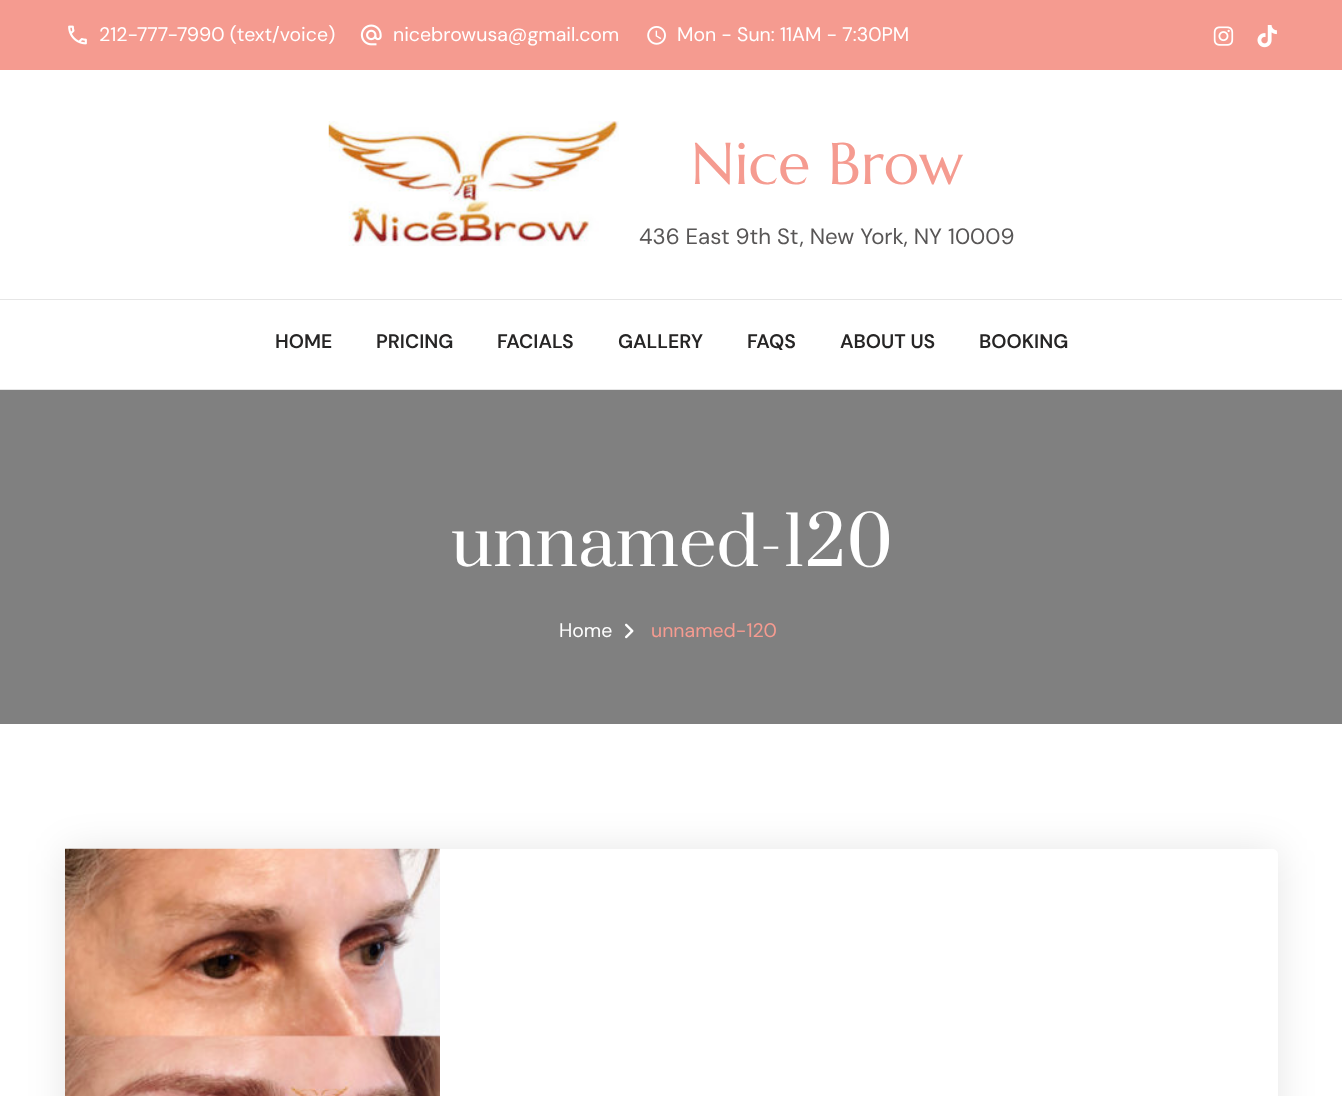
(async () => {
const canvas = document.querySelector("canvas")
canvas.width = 1342
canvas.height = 1096
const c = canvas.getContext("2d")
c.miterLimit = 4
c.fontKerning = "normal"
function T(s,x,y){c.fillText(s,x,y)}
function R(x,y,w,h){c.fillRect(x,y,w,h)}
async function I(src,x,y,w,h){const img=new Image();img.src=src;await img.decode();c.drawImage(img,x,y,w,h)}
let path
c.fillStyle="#fff"
R(0,0,1342,1096)
c.fillStyle="#f59b90"
R(0,0,1342,70)
await I("1.png",68,25,19,20)
c.font="19.5px DM Sans"
c.fillStyle="#fff"
T("212-777-7990 (text/voice)",99,41)
await I("2.png",360,24,22,22)
T("nicebrowusa@gmail.com",393,41)
await I("3.png",647,26,19,19)
T("Mon - Sun: 11AM - 7:30PM",677,41)
await I("4.png",1213,26,21,20)
await I("5.png",1257,25,20,23)
await I("6.png",328,121,291,125)
c.font="58.75px Marcellus"
c.fillStyle="#f59b90"
T("Nice Brow",691,184)
c.font="22.25px DM Sans"
c.fillStyle="#585656"
T("436 East 9th St, New York, NY 10009",639,244)
c.fillStyle="#e6e6e6"
R(0,299,1342,1)
R(0,389,1342,1)
c.font="600 19.5px DM Sans"
c.fillStyle="#262525"
T("HOME",275,348)
T("PRICING",376,348)
T("FACIALS",497,348)
T("GALLERY",618,348)
T("FAQS",747,348)
T("ABOUT US",840,348)
T("BOOKING",979,348)
c.fillStyle="#808080"
R(0,390,1342,334)
c.font="66.75px Prata"
c.fillStyle="#fff"
T("unnamed-120",451,566)
c.font="19.5px DM Sans"
T("Home",559,637)
await I("7.png",625,623,9,16)
c.fillStyle="#f59b90"
T("unnamed-120",651,637)
c.save()
path = new Path2D("M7 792h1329v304h-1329zm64 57h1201c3.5 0 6 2.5 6 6v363c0 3.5-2.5 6-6 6h-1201c-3.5 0-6-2.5-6-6v-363c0-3.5 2.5-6 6-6z")
c.clip(path,"evenodd")
c.fillStyle="#0000001a"
c.filter="blur(19px)"
c.beginPath()
c.roundRect(65,850,1213,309,6)
c.fill()
c.filter="none"
c.restore()
await I("8.png",65,848,375,248)
})()
